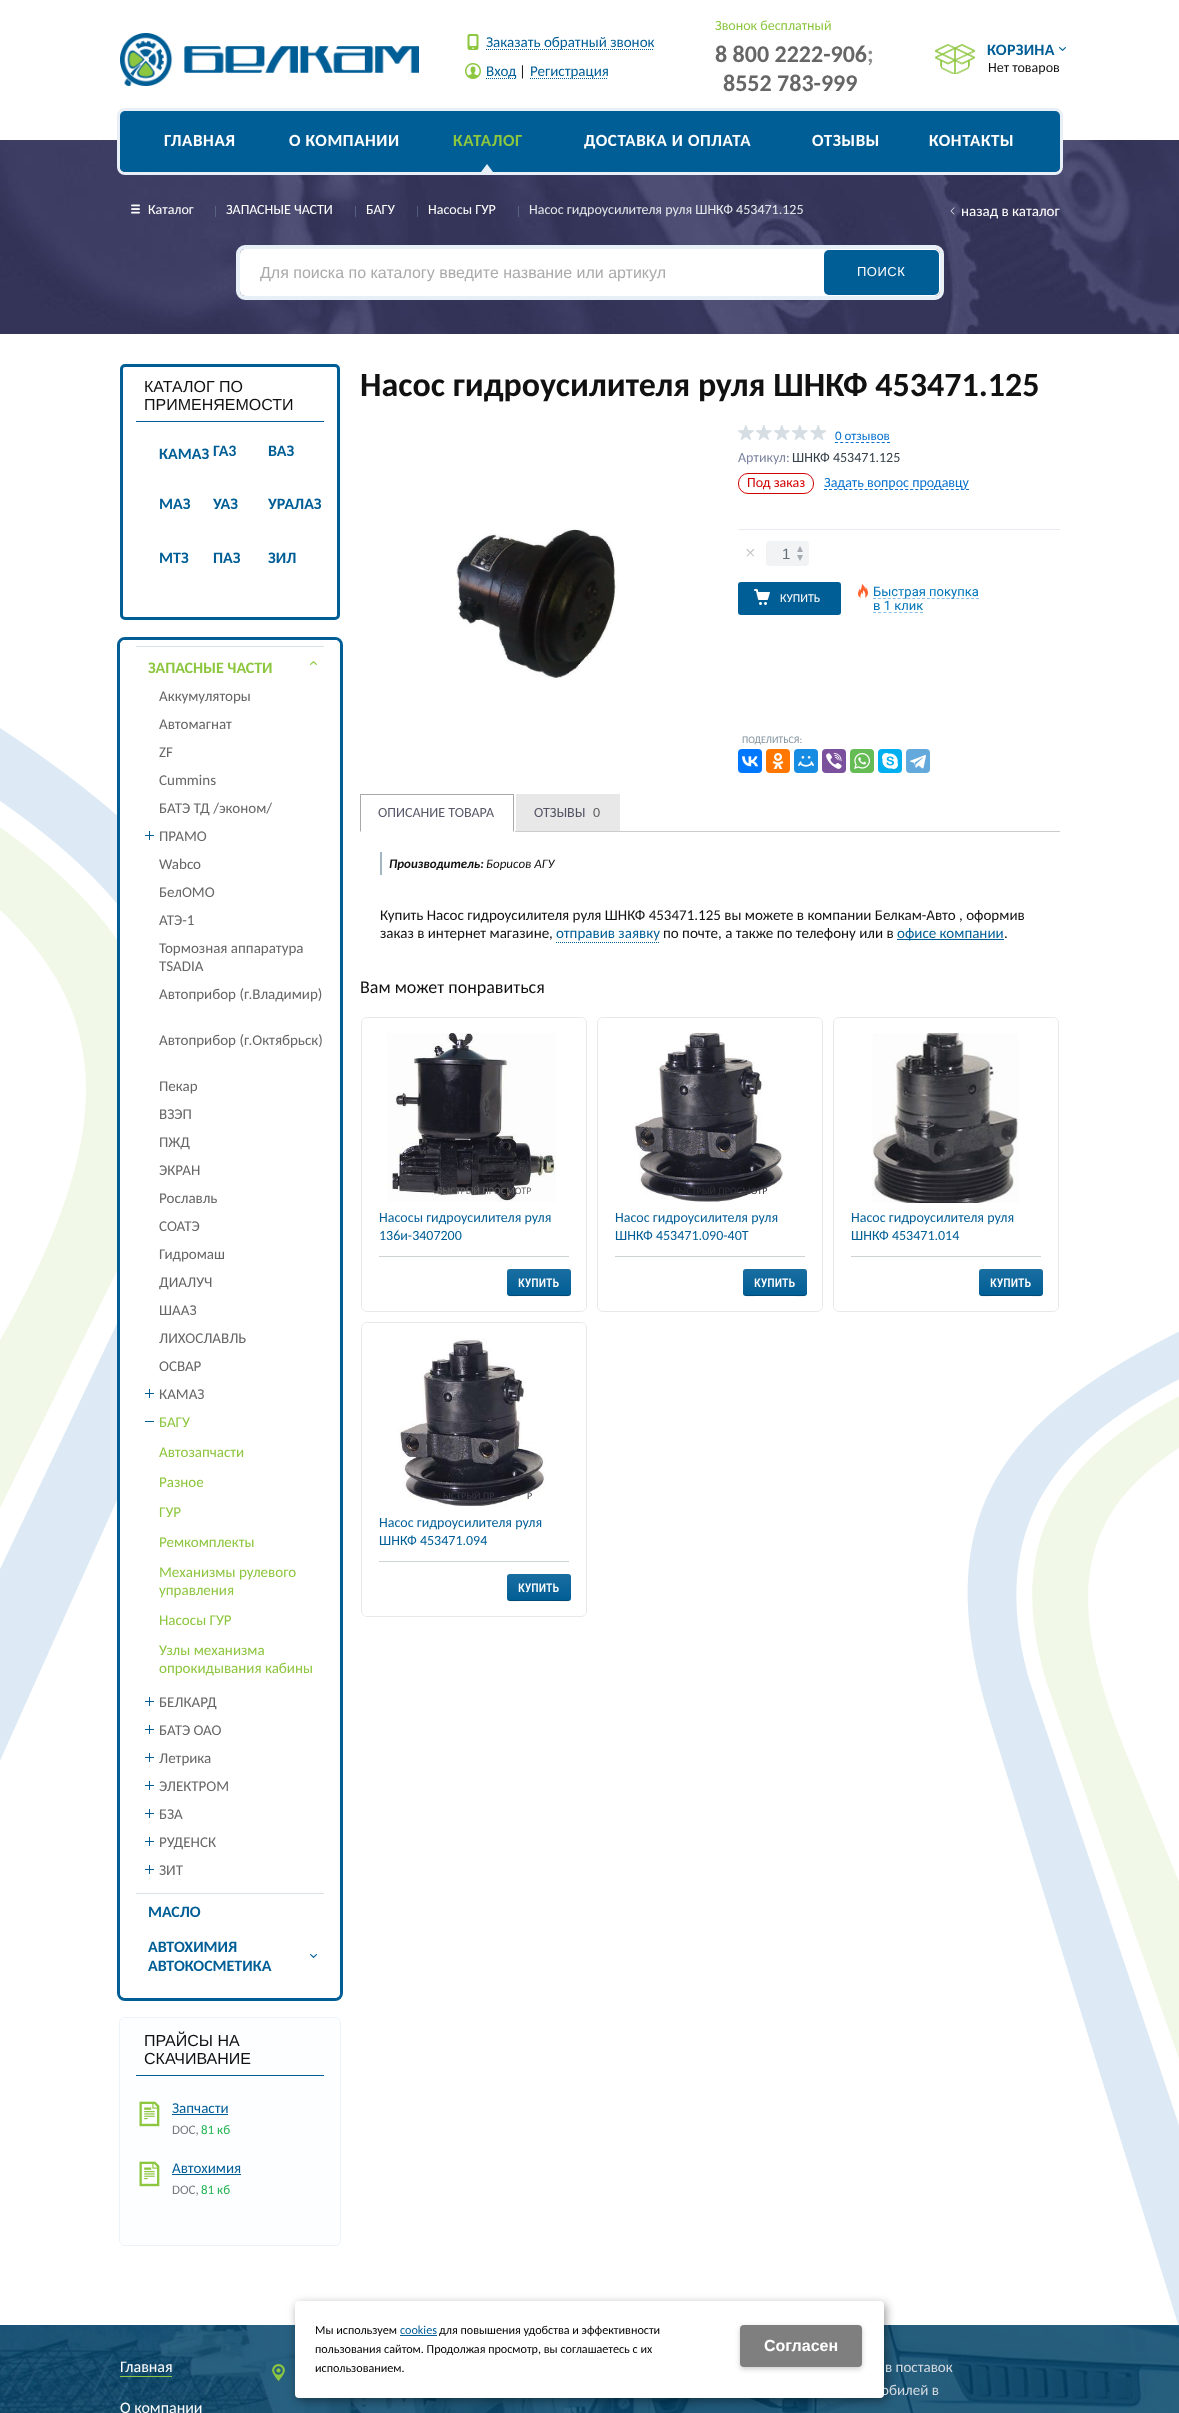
(async () => {
const canvas = document.querySelector("canvas")
canvas.width = 1179
canvas.height = 2413
const c = canvas.getContext("2d")
c.miterLimit = 4
c.fontKerning = "normal"
function T(s,x,y){c.fillText(s,x,y)}
function R(x,y,w,h){c.fillRect(x,y,w,h)}
function Q(x,y,w,h,r){c.beginPath();c.roundRect(x,y,w,h,r);c.fill()}
async function I(src,x,y,w,h){const img=new Image();img.src=src;await img.decode();c.drawImage(img,x,y,w,h)}
let gradient, path
c.fillStyle="#fff"
R(0,0,1179,2413)
await I("1.png",0,728,1179,1597)
await I("2.png",120,33,299,53)
await I("3.png",467,34,12,16)
path = new Path2D("M486 49.5h168")
c.strokeStyle="#005e96"
c.setLineDash([1,1])
c.stroke(path)
c.font="15px Carlito"
c.fillStyle="#005e96"
T("Заказать обратный звонок",486,47)
await I("4.png",465,63,16,16)
path = new Path2D("M486 78.5h30")
c.stroke(path)
T("Вход",486,76)
c.fillStyle="#111"
T("|",519,76)
path = new Path2D("M530 78.5h78")
c.stroke(path)
c.fillStyle="#005e96"
T("Регистрация",530,76)
c.font="14px Carlito"
c.fillStyle="#8dc63f"
T("Звонок бесплатный",715,30)
c.font="bold 24px Carlito"
c.fillStyle="#666"
T("8 800 2222-906",715,62)
c.fillStyle="#8f8f92"
T(";",867,62)
c.fillStyle="#666"
T("8552 783-999",723,91)
await I("5.png",935,44,40,30)
c.letterSpacing="0.25px"
c.font="bold 16px Carlito"
c.fillStyle="#005e96"
T("КОРЗИНА",987,55)
await I("6.png",1059,47,7,4)
c.letterSpacing="0px"
c.font="14px Carlito"
c.fillStyle="#111"
T("Нет товаров",988,72)
await I("7.png",0,140,1179,194)
c.beginPath()
c.roundRect(118.5,109.5,943,64,6.5)
c.strokeStyle="#e8eff7"
c.lineWidth=3
c.setLineDash([])
c.stroke()
c.fillStyle="#005e96"
Q(120,111,940,61,5)
c.letterSpacing="0.6px"
c.font="bold 17px Carlito"
c.fillStyle="#fff"
T("ГЛАВНАЯ",164,146)
T("О КОМПАНИИ",289,146)
c.fillStyle="#8dc63f"
T("КАТАЛОГ",453,146)
c.fillStyle="#e8eff7"
path = new Path2D("M493 172h-12l6-8z")
c.fill(path)
c.fillStyle="#fff"
T("ДОСТАВКА И ОПЛАТА",584,146)
T("ОТЗЫВЫ",812,146)
T("КОНТАКТЫ",929,146)
await I("8.png",131,204,9,10)
c.letterSpacing="0px"
c.font="14px Carlito"
T("Каталог",148,214)
c.fillStyle="#56647f"
R(215,206,1,11)
c.fillStyle="#fff"
T("ЗАПАСНЫЕ ЧАСТИ",226,214)
c.fillStyle="#52617c"
R(355,206,1,11)
c.fillStyle="#fff"
T("БАГУ",366,214)
c.fillStyle="#505f79"
R(417,206,1,11)
c.fillStyle="#fff"
T("Насосы ГУР",428,214)
c.fillStyle="#54637e"
R(518,206,1,11)
c.fillStyle="#e4e8ea"
T("Насос гидроусилителя руля ШНКФ 453471.125",529,214)
await I("9.png",950,207,5,8)
c.font="15px Carlito"
c.fillStyle="#fff"
T("назад в каталог",961,216)
c.beginPath()
c.roundRect(238,247,704,51,7)
c.lineWidth=4
c.stroke()
Q(240,249,700,47,5)
c.save()
c.beginPath()
c.rect(260,264,580,18)
c.clip()
c.font="16px Liberation Sans"
c.fillStyle="#aaa"
T("Для поиска по каталогу введите название или артикул",260,278)
c.restore()
c.fillStyle="#005e96"
Q(824,250,115,45,5)
c.letterSpacing="0.5px"
c.font="13px Liberation Sans"
c.fillStyle="#fff"
T("ПОИСК",857,276)
c.beginPath()
c.roundRect(121.5,365.5,217,253,3.5)
c.strokeStyle="#005e96"
c.lineWidth=3
c.stroke()
c.fillStyle="#005e96"
R(136,421,188,1)
c.letterSpacing="0px"
c.font="16px Liberation Sans"
c.fillStyle="#111"
T("КАТАЛОГ ПО",144,392)
T("ПРИМЕНЯЕМОСТИ",144,410)
c.font="bold 16px Carlito"
c.fillStyle="#005e96"
T("КАМАЗ",159,459)
T("ГА3",213,456)
T("ВАЗ",268,456)
T("МАЗ",159,509)
T("УАЗ",213,509)
T("УРАЛАЗ",268,509)
T("МТЗ",159,563)
T("ПАЗ",213,563)
T("ЗИЛ",268,563)
c.beginPath()
c.roundRect(118.5,638.5,223,1361,6.5)
c.stroke()
c.fillStyle="#fff"
Q(120,640,220,1358,5)
c.fillStyle="#d9e2e7"
R(136,646,188,1)
c.fillStyle="#8dc63f"
T("ЗАПАСНЫЕ ЧАСТИ",148,673)
await I("10.png",310,661,7,4)
c.font="15px Carlito"
c.fillStyle="#666"
T("Аккумуляторы",159,701)
T("Автомагнат",159,729)
T("ZF",159,757)
T("Cummins",159,785)
T("БАТЭ ТД /эконом/",159,813)
c.fillStyle="#005e96"
R(149,831,1,9)
R(145,835,9,1)
c.fillStyle="#666"
T("ПРАМО",159,841)
T("Wabco",159,869)
T("БелОМО",159,897)
T("АТЭ-1",159,925)
T("Тормозная аппаратура",159,953)
T("TSADIA",159,971)
T("Автоприбор (г.Владимир)",159,999)
T("Автоприбор (г.Октябрьск)",159,1045)
T("Пекар",159,1091)
T("ВЗЭП",159,1119)
T("ПЖД",159,1147)
T("ЭКРАН",159,1175)
T("Рославль",159,1203)
T("СОАТЭ",159,1231)
T("Гидромаш",159,1259)
T("ДИАЛУЧ",159,1287)
T("ШААЗ",159,1315)
T("ЛИХОСЛАВЛЬ",159,1343)
T("ОСВАР",159,1371)
c.fillStyle="#005e96"
R(149,1389,1,9)
R(145,1393,9,1)
c.fillStyle="#666"
T("КАМАЗ",159,1399)
c.fillStyle="#005e96"
R(145,1421,9,1)
c.fillStyle="#8dc63f"
T("БАГУ",159,1427)
T("Автозапчасти",159,1457)
T("Разное",159,1487)
T("ГУР",159,1517)
T("Ремкомплекты",159,1547)
T("Механизмы рулевого",159,1577)
T("управления",159,1595)
T("Насосы ГУР",159,1625)
T("Узлы механизма",159,1655)
T("опрокидывания кабины",159,1673)
c.fillStyle="#005e96"
R(149,1697,1,9)
R(145,1701,9,1)
c.fillStyle="#666"
T("БЕЛКАРД",159,1707)
c.fillStyle="#005e96"
R(149,1725,1,9)
R(145,1729,9,1)
c.fillStyle="#666"
T("БАТЭ ОАО",159,1735)
c.fillStyle="#005e96"
R(149,1753,1,9)
R(145,1757,9,1)
c.fillStyle="#666"
T("Летрика",159,1763)
c.fillStyle="#005e96"
R(149,1781,1,9)
R(145,1785,9,1)
c.fillStyle="#666"
T("ЭЛЕКТРОМ",159,1791)
c.fillStyle="#005e96"
R(149,1809,1,9)
R(145,1813,9,1)
c.fillStyle="#666"
T("БЗА",159,1819)
c.fillStyle="#005e96"
R(149,1837,1,9)
R(145,1841,9,1)
c.fillStyle="#666"
T("РУДЕНСК",159,1847)
c.fillStyle="#005e96"
R(149,1865,1,9)
R(145,1869,9,1)
c.fillStyle="#666"
T("ЗИТ",159,1875)
c.fillStyle="#d9e2e7"
R(136,1893,188,1)
c.font="bold 16px Carlito"
c.fillStyle="#005e96"
T("МАСЛО",148,1917)
T("АВТОХИМИЯ",148,1952)
T("АВТОКОСМЕТИКА",148,1971)
await I("6.png",310,1954,7,4)
c.beginPath()
c.roundRect(119.5,2017.5,221,228,5.5)
c.strokeStyle="#ecf3f9"
c.lineWidth=1
c.stroke()
c.fillStyle="#fdfeffdb"
Q(120,2018,220,227,5)
c.fillStyle="#005e96"
R(136,2075,188,1)
c.font="16px Liberation Sans"
c.fillStyle="#111"
T("ПРАЙСЫ НА",144,2046)
T("СКАЧИВАНИЕ",144,2064)
await I("11.png",139,2101,21,26)
c.font="15px Carlito"
c.fillStyle="#005e96"
T("Запчасти",172,2113)
R(172,2114,56,1)
c.font="13px Carlito"
c.fillStyle="#777c7f"
T("DOC,",172,2134)
c.fillStyle="#24b555"
T("81 кб",201,2134)
await I("11.png",139,2161,21,26)
c.font="15px Carlito"
c.fillStyle="#005e96"
T("Автохимия",172,2173)
R(172,2174,69,1)
c.font="13px Carlito"
c.fillStyle="#777c7f"
T("DOC,",172,2194)
c.fillStyle="#24b555"
T("81 кб",201,2194)
c.font="bold 34px Carlito"
c.fillStyle="#111"
T("Насос гидроусилителя руля ШНКФ 453471.125",360,396)
await I("12.png",360,425,348,348)
await I("13.png",738,425,88,15)
path = new Path2D("M835 442.5h55")
c.strokeStyle="#0971cc"
c.setLineDash([3,2.2])
c.stroke(path)
c.font="13px Carlito"
c.fillStyle="#0971cc"
T("0 отзывов",835,440)
c.font="14px Carlito"
c.fillStyle="#7d859f"
T("Артикул:",738,462)
c.fillStyle="#35424b"
T("ШНКФ 453471.125",792,462)
c.beginPath()
c.roundRect(738.5,473.5,75,20,9.5)
c.strokeStyle="#d20303"
c.setLineDash([])
c.stroke()
c.fillStyle="#d20303"
T("Под заказ",747,487)
path = new Path2D("M824 489.5h145")
c.strokeStyle="#0971cc"
c.setLineDash([3,2.07])
c.stroke(path)
c.fillStyle="#0971cc"
T("Задать вопрос продавцу",824,487)
c.fillStyle="#e8ecf0"
R(738,529,322,1)
c.font="19px Liberation Serif"
c.fillStyle="#b8bcc0"
T("×",745,559)
c.fillStyle="#f1f3f5"
Q(766,541,43,25,4)
c.font="15px Liberation Sans"
c.fillStyle="#636e76"
T("1",782,559)
c.fillStyle="#a4aab0"
path = new Path2D("M803 552h-6l3-6zm-6 3h6l-3 6z")
c.fill(path)
c.fillStyle="#005e96"
Q(738,582,103,33,3)
await I("14.png",754,589,16,16)
c.font="12px Carlito"
c.fillStyle="#fff"
T("КУПИТЬ",780,602)
await I("15.png",858,584,10,14)
path = new Path2D("M873 598.5h106")
c.strokeStyle="#8abeeb"
c.setLineDash([3,1.9])
c.stroke(path)
c.font="13px Roboto"
c.fillStyle="#0075b8"
T("Быстрая покупка",873,596)
path = new Path2D("M873 612.5h50")
c.setLineDash([3,2.22])
c.stroke(path)
T("в 1 клик",873,610)
c.font="10px Carlito"
c.fillStyle="#81919c"
T("ПОДЕЛИТЬСЯ:",742,743)
c.fillStyle="#07f"
Q(738,749,24,24,4)
await I("16.png",742,756,16,11)
c.fillStyle="#f70"
Q(766,749,24,24,4)
await I("17.png",772,753,12,16)
c.fillStyle="#168de2"
Q(794,749,24,24,4)
await I("18.png",798,756,16,11)
c.fillStyle="#7b519d"
Q(822,749,24,24,4)
await I("19.png",826,753,16,16)
c.fillStyle="#65bc54"
Q(850,749,24,24,4)
await I("20.png",854,753,16,16)
c.fillStyle="#00aff0"
Q(878,749,24,24,4)
await I("21.png",882,753,16,16)
c.fillStyle="#64a9dc"
Q(906,749,24,24,4)
await I("22.png",910,755,16,14)
c.fillStyle="#a8a8a8"
path = new Path2D("M360 794h154l-1 1h-152z")
c.fill(path)
c.fillStyle="#00000057"
path = new Path2D("M514 794v38l-1-1v-36z")
c.fill(path)
path = new Path2D("M360 832v-38l1 1v36z")
c.fill(path)
c.font="14px Carlito"
c.fillStyle="#58586a"
T("ОПИСАНИЕ ТОВАРА",378,817)
c.fillStyle="#ccc"
R(515,831,545,1)
c.fillStyle="#e8e8e8"
R(516,794,104,37)
c.fillStyle="#525264"
T("ОТЗЫВЫ",534,817)
c.fillStyle="#5e5e5e"
T("0",593,817)
c.fillStyle="#a1b5c2"
R(380,852,2,23)
c.font="italic bold 13px Carlito"
c.fillStyle="#111"
T("Производитель:",389,868)
c.font="italic 13px Carlito"
T("Борисов АГУ",486,868)
c.font="15px Carlito"
T("Купить Насос гидроусилителя руля ШНКФ 453471.125 вы можете в компании Белкам-Авто , оформив",380,920)
T("заказ в интернет магазине,",380,938)
c.fillStyle="#005e96"
T("отправив заявку",556,938)
path = new Path2D("M556 942.5h104")
c.strokeStyle="#005e96"
c.setLineDash([1,1])
c.stroke(path)
c.fillStyle="#111"
T("по почте, а также по телефону или в",663,938)
c.fillStyle="#005e96"
R(897,939,107,1)
T("офисе компании",897,938)
c.fillStyle="#111"
T(".",1004,938)
c.font="18px Carlito"
T("Вам может понравиться",360,993)
c.beginPath()
c.roundRect(361.5,1017.5,225,294,5.5)
c.strokeStyle="#e8e8e8"
c.setLineDash([])
c.stroke()
c.fillStyle="#fff"
Q(362,1018,224,293,5)
await I("23.png",387,1033,169,169)
c.letterSpacing="0.1px"
c.font="10px Carlito"
c.fillStyle="#666"
T("БЫСТРЫЙ ПРОСМОТР",437,1194)
c.fillStyle="#ced3d6"
R(379,1256,190,1)
c.letterSpacing="0px"
c.font="14px Carlito"
c.fillStyle="#005e96"
T("Насосы гидроусилителя руля",379,1222)
T("136и-3407200",379,1240)
Q(507,1269,64,27,3)
gradient = c.createLinearGradient(539,1269,539,1296)
gradient.addColorStop(0,"#ffffff1a")
gradient.addColorStop(1,"#ffffff00")
c.fillStyle = gradient
Q(507,1269,64,27,3)
c.fillStyle="#00000033"
path = new Path2D("M507 1292c0 6 8 4 13 4h38c5 0 13 2 13-4c0 2-1 3-3 3h-58c-2 0-3-1-3-3z")
c.fill(path)
c.font="500 12px Roboto Condensed"
c.fillStyle="#fff"
T("КУПИТЬ",518,1287)
c.beginPath()
c.roundRect(597.5,1017.5,225,294,5.5)
c.stroke()
Q(598,1018,224,293,5)
await I("24.png",634,1033,149,170)
c.letterSpacing="0.1px"
c.font="10px Carlito"
c.fillStyle="#33333b"
T("БЫСТРЫЙ ПРОСМОТР",673,1194)
c.fillStyle="#ced3d6"
R(615,1256,190,1)
c.letterSpacing="0px"
c.font="14px Carlito"
c.fillStyle="#005e96"
T("Насос гидроусилителя руля",615,1222)
T("ШНКФ 453471.090-40Т",615,1240)
Q(743,1269,64,27,3)
gradient = c.createLinearGradient(775,1269,775,1296)
gradient.addColorStop(0,"#ffffff1a")
gradient.addColorStop(1,"#ffffff00")
c.fillStyle = gradient
Q(743,1269,64,27,3)
c.fillStyle="#00000033"
path = new Path2D("M743 1292c0 6 8 4 13 4h38c5 0 13 2 13-4c0 2-1 3-3 3h-58c-2 0-3-1-3-3z")
c.fill(path)
c.font="500 12px Roboto Condensed"
c.fillStyle="#fff"
T("КУПИТЬ",754,1287)
c.beginPath()
c.roundRect(833.5,1017.5,225,294,5.5)
c.stroke()
Q(834,1018,224,293,5)
await I("25.png",872,1033,147,170)
c.fillStyle="#ced3d6"
R(851,1256,190,1)
c.font="14px Carlito"
c.fillStyle="#005e96"
T("Насос гидроусилителя руля",851,1222)
T("ШНКФ 453471.014",851,1240)
Q(979,1269,64,27,3)
gradient = c.createLinearGradient(1011,1269,1011,1296)
gradient.addColorStop(0,"#ffffff1a")
gradient.addColorStop(1,"#ffffff00")
c.fillStyle = gradient
Q(979,1269,64,27,3)
c.fillStyle="#00000033"
path = new Path2D("M979 1292c0 6 8 4 13 4h38c5 0 13 2 13-4c0 2-1 3-3 3h-58c-2 0-3-1-3-3z")
c.fill(path)
c.font="500 12px Roboto Condensed"
c.fillStyle="#fff"
T("КУПИТЬ",990,1287)
c.beginPath()
c.roundRect(361.5,1322.5,225,294,5.5)
c.stroke()
Q(362,1323,224,293,5)
await I("26.png",398,1338,148,169)
c.letterSpacing="0.1px"
c.font="10px Carlito"
c.fillStyle="#3c3b44"
T("ЫСТРЫЙ ПР",443,1499)
T("Р",527,1499)
c.fillStyle="#ced3d6"
R(379,1561,190,1)
c.letterSpacing="0px"
c.font="14px Carlito"
c.fillStyle="#005e96"
T("Насос гидроусилителя руля",379,1527)
T("ШНКФ 453471.094",379,1545)
Q(507,1574,64,27,3)
gradient = c.createLinearGradient(539,1574,539,1601)
gradient.addColorStop(0,"#ffffff1a")
gradient.addColorStop(1,"#ffffff00")
c.fillStyle = gradient
Q(507,1574,64,27,3)
c.fillStyle="#00000033"
path = new Path2D("M507 1597c0 6 8 4 13 4h38c5 0 13 2 13-4c0 2-1 3-3 3h-58c-2 0-3-1-3-3z")
c.fill(path)
c.font="500 12px Roboto Condensed"
c.fillStyle="#fff"
T("КУПИТЬ",518,1592)
await I("27.png",0,2325,1179,88)
await I("28.png",272,2364,13,17)
c.fillStyle="#00000066"
c.filter="blur(5px)"
c.beginPath()
c.roundRect(297,2304,589,97,4)
c.fill()
c.filter="none"
c.font="15px Carlito"
c.fillStyle="#d2d9df"
T("обилей в",881,2395)
c.fillStyle="#fff"
Q(295,2301,589,97,4)
c.font="12.15px Carlito"
c.fillStyle="#000"
T("Мы используем",315,2334)
c.fillStyle="#005e96"
T("cookies",400,2334)
R(400,2335,37,1)
c.fillStyle="#000"
T("для повышения удобства и эффективности",439,2334)
T("пользования сайтом. Продолжая просмотр, вы соглашаетесь с их",315,2353)
T("использованием.",315,2372)
c.fillStyle="#00000033"
c.filter="blur(2.5px)"
c.beginPath()
c.roundRect(740,2327,122,42,4)
c.fill()
c.filter="none"
c.fillStyle="#7f7f7f"
Q(740,2325,122,42,4)
c.font="bold 16px Liberation Sans"
c.fillStyle="#fff"
T("Cогласен",764,2351)
c.font="16px Carlito"
T("Главная",120,2372)
c.fillStyle="#8dc63f"
R(120,2376,52,1)
c.fillStyle="#fff"
T("О компании",120,2413)
c.font="15px Carlito"
c.fillStyle="#d2d9df"
T("в поставок",885,2372)
})()
